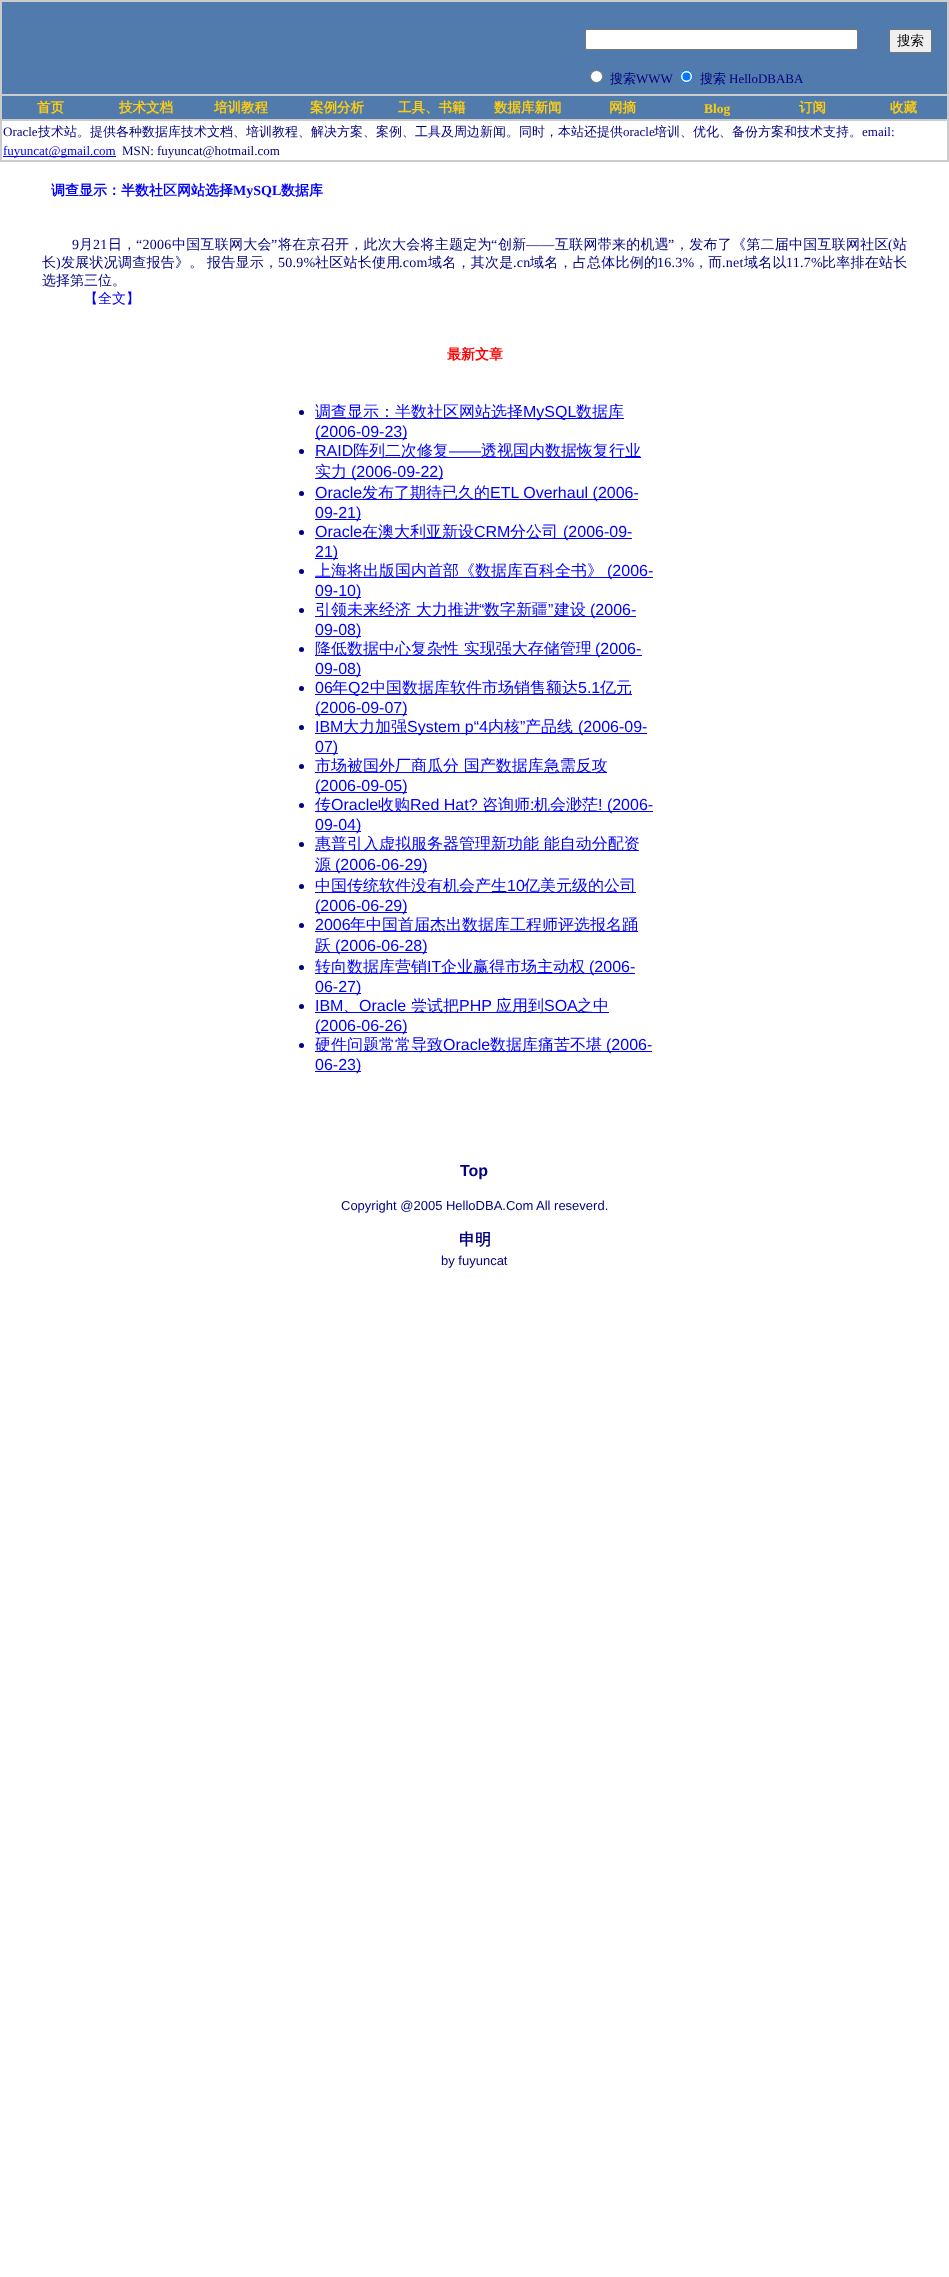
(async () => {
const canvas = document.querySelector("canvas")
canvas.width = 949
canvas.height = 2277
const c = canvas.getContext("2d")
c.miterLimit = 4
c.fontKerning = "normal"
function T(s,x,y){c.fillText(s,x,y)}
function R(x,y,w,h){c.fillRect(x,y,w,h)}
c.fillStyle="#fff"
R(0,0,949,2277)
c.fillStyle="#ccc"
R(0,0,949,162)
c.fillStyle="#527bad"
R(2,2,945,92)
c.fillStyle="#fff"
c.beginPath()
c.roundRect(585.5,29.5,272,20,1.5)
c.fill()
c.strokeStyle="#767676"
c.stroke()
c.fillStyle="#efefef"
c.beginPath()
c.roundRect(889.5,29.5,42,23,1.5)
c.fill()
c.stroke()
c.font="500 13.5px WenQuanYi Zen Hei"
c.fillStyle="#000"
T("搜索",897,45)
c.fillStyle="#fff"
c.beginPath()
c.arc(596.5,76.5,6,0,7)
c.fill()
c.stroke()
c.font="500 13px WenQuanYi Zen Hei"
c.fillStyle="#000080"
T("搜索",610,83)
c.font="13px Liberation Serif"
T("WWW",636,83)
c.fillStyle="#fff"
c.beginPath()
c.arc(686.5,76.5,6,0,7)
c.fill()
c.strokeStyle="#0075ff"
c.stroke()
c.fillStyle="#0075ff"
c.beginPath()
c.arc(686.5,76.5,4,0,7)
c.fill()
c.font="500 13px WenQuanYi Zen Hei"
c.fillStyle="#000080"
T("搜索",700,83)
c.font="13px Liberation Serif"
T("HelloDBABA",729,83)
c.fillStyle="#527bad"
R(2,96,945,23)
c.font="bold 13.5px WenQuanYi Zen Hei"
c.fillStyle="#fccd10"
T("首页",37,112)
T("技术文档",119,112)
T("培训教程",214,112)
T("案例分析",310,112)
T("工具、书籍",398,112)
T("数据库新闻",494,112)
T("网摘",609,112)
c.font="bold 13.5px Liberation Serif"
T("Blog",704,113)
c.font="bold 13.5px WenQuanYi Zen Hei"
T("订阅",799,112)
T("收藏",890,112)
c.fillStyle="#fff"
R(2,121,945,39)
c.font="13px Liberation Serif"
c.fillStyle="#000080"
T("Oracle",3,136)
c.font="500 13px WenQuanYi Zen Hei"
T("技术站。提供各种数据库技术文档、培训教程、解决方案、案例、工具及周边新闻。同时，本站还提供",38,136)
c.font="13px Liberation Serif"
T("oracle",623,136)
c.font="500 13px WenQuanYi Zen Hei"
T("培训、优化、备份方案和技术支持。",654,136)
c.font="13px Liberation Serif"
T("email:",862,136)
c.fillStyle="#00f"
R(3,156,113,1)
T("fuyuncat@gmail.com",3,155)
c.fillStyle="#000080"
T("MSN: fuyuncat@hotmail.com",122,155)
c.font="bold 14px WenQuanYi Zen Hei"
c.fillStyle="#00f"
T("调查显示：半数社区网站选择",51,195)
c.font="bold 14px Liberation Serif"
T("MySQL",233,195)
c.font="bold 14px WenQuanYi Zen Hei"
T("数据库",281,195)
c.letterSpacing="0.25px"
c.font="14px Liberation Serif"
c.fillStyle="#000080"
T("9",72,249)
c.font="500 14px WenQuanYi Zen Hei"
T("月",79,249)
c.font="14px Liberation Serif"
T("21",93,249)
c.font="500 14px WenQuanYi Zen Hei"
T("日，",108,249)
c.font="14px Liberation Serif"
T("“2006",136,249)
c.font="500 14px WenQuanYi Zen Hei"
T("中国互联网大会",172,249)
c.font="14px Liberation Serif"
T("”",271,249)
c.font="500 14px WenQuanYi Zen Hei"
T("将在京召开，此次大会将主题定为",278,249)
c.font="14px Liberation Serif"
T("“",491,249)
c.font="500 14px WenQuanYi Zen Hei"
T("创新",498,249)
c.font="14px Liberation Serif"
T("——",526,249)
c.font="500 14px WenQuanYi Zen Hei"
T("互联网带来的机遇",555,249)
c.font="14px Liberation Serif"
T("”",668,249)
c.font="500 14px WenQuanYi Zen Hei"
T("，发布了《第二届中国互联网社区",675,249)
c.font="14px Liberation Serif"
T("(",888,249)
c.font="500 14px WenQuanYi Zen Hei"
T("站",893,249)
T("长",42,267)
c.font="14px Liberation Serif"
T(")",56,267)
c.font="500 14px WenQuanYi Zen Hei"
T("发展状况调查报告》。",61,267)
T("报告显示，",207,267)
c.font="14px Liberation Serif"
T("50.9%",278,267)
c.font="500 14px WenQuanYi Zen Hei"
T("社区站长使用",315,267)
c.font="14px Liberation Serif"
T(".com",399,267)
c.font="500 14px WenQuanYi Zen Hei"
T("域名，其次是",428,267)
c.font="14px Liberation Serif"
T(".cn",513,267)
c.font="500 14px WenQuanYi Zen Hei"
T("域名，占总体比例的",530,267)
c.font="14px Liberation Serif"
T("16.3%",657,267)
c.font="500 14px WenQuanYi Zen Hei"
T("，而",694,267)
c.font="14px Liberation Serif"
T(".net",722,267)
c.font="500 14px WenQuanYi Zen Hei"
T("域名以",744,267)
c.font="14px Liberation Serif"
T("11.7%",786,267)
c.font="500 14px WenQuanYi Zen Hei"
T("比率排在站长",822,267)
c.letterSpacing="0px"
T("选择第三位。",42,285)
c.fillStyle="#00f"
T("【全文】",84,303)
c.font="bold 14px WenQuanYi Zen Hei"
c.fillStyle="#f00"
T("最新文章",447,359)
c.fillStyle="#000080"
c.beginPath()
c.arc(301.5,412.5,2.5,0,7)
c.fill()
c.fillStyle="#00f"
R(315,418,309,1)
c.font="500 16px WenQuanYi Zen Hei"
T("调查显示：半数社区网站选择",315,417)
c.font="16px Liberation Sans"
T("MySQL",523,417)
c.font="500 16px WenQuanYi Zen Hei"
T("数据库",576,417)
R(315,438,92,1)
c.font="16px Liberation Sans"
T("(2006-09-23)",315,437)
c.fillStyle="#000080"
c.beginPath()
c.arc(301.5,451.5,2.5,0,7)
c.fill()
c.fillStyle="#00f"
T("RAID",315,456)
R(315,457,326,1)
c.font="500 16px WenQuanYi Zen Hei"
T("阵列二次修复",353,456)
c.font="16px Liberation Sans"
T("——",449,456)
c.font="500 16px WenQuanYi Zen Hei"
T("透视国内数据恢复行业",481,456)
R(315,478,128,1)
T("实力",315,477)
c.font="16px Liberation Sans"
T("(2006-09-22)",351,477)
c.fillStyle="#000080"
c.beginPath()
c.arc(301.5,493.5,2.5,0,7)
c.fill()
c.fillStyle="#00f"
T("Oracle",315,498)
R(315,499,323,1)
c.font="500 16px WenQuanYi Zen Hei"
T("发布了期待已久的",362,498)
c.font="16px Liberation Sans"
T("ETL Overhaul (2006-",490,498)
R(315,519,46,1)
T("09-21)",315,518)
c.fillStyle="#000080"
c.beginPath()
c.arc(301.5,532.5,2.5,0,7)
c.fill()
c.fillStyle="#00f"
T("Oracle",315,537)
R(315,538,317,1)
c.font="500 16px WenQuanYi Zen Hei"
T("在澳大利亚新设",362,537)
c.font="16px Liberation Sans"
T("CRM",474,537)
c.font="500 16px WenQuanYi Zen Hei"
T("分公司",510,537)
c.font="16px Liberation Sans"
T("(2006-09-",563,537)
R(315,558,23,1)
T("21)",315,557)
c.fillStyle="#000080"
c.beginPath()
c.arc(301.5,571.5,2.5,0,7)
c.fill()
c.fillStyle="#00f"
R(315,577,338,1)
c.font="500 16px WenQuanYi Zen Hei"
T("上海将出版国内首部《数据库百科全书》",315,576)
c.font="16px Liberation Sans"
T("(2006-",607,576)
R(315,597,46,1)
T("09-10)",315,596)
R(315,616,321,1)
c.font="500 16px WenQuanYi Zen Hei"
T("引领未来经济 大力推进",315,615)
c.font="16px Liberation Sans"
T("“",479,615)
c.font="500 16px WenQuanYi Zen Hei"
T("数字新疆",484,615)
c.font="16px Liberation Sans"
T("”",548,615)
c.font="500 16px WenQuanYi Zen Hei"
T("建设",554,615)
c.font="16px Liberation Sans"
T("(2006-",590,615)
c.fillStyle="#000080"
c.beginPath()
c.arc(301.5,610.5,2.5,0,7)
c.fill()
c.fillStyle="#00f"
R(315,636,46,1)
T("09-08)",315,635)
c.fillStyle="#000080"
c.beginPath()
c.arc(301.5,649.5,2.5,0,7)
c.fill()
c.fillStyle="#00f"
R(315,655,327,1)
c.font="500 16px WenQuanYi Zen Hei"
T("降低数据中心复杂性 实现强大存储管理",315,654)
c.font="16px Liberation Sans"
T("(2006-",595,654)
R(315,675,46,1)
T("09-08)",315,674)
c.fillStyle="#000080"
c.beginPath()
c.arc(301.5,688.5,2.5,0,7)
c.fill()
c.fillStyle="#00f"
T("06",315,693)
R(315,694,317,1)
c.font="500 16px WenQuanYi Zen Hei"
T("年",332,693)
c.font="16px Liberation Sans"
T("Q2",348,693)
c.font="500 16px WenQuanYi Zen Hei"
T("中国数据库软件市场销售额达",370,693)
c.font="16px Liberation Sans"
T("5.1",578,693)
c.font="500 16px WenQuanYi Zen Hei"
T("亿元",600,693)
R(315,714,92,1)
c.font="16px Liberation Sans"
T("(2006-09-07)",315,713)
T("IBM",315,732)
R(315,733,332,1)
c.font="500 16px WenQuanYi Zen Hei"
T("大力加强",343,732)
c.font="16px Liberation Sans"
T("System p“4",407,732)
c.font="500 16px WenQuanYi Zen Hei"
T("内核",488,732)
c.font="16px Liberation Sans"
T("”",520,732)
c.font="500 16px WenQuanYi Zen Hei"
T("产品线",525,732)
c.font="16px Liberation Sans"
T("(2006-09-",578,732)
c.fillStyle="#000080"
c.beginPath()
c.arc(301.5,727.5,2.5,0,7)
c.fill()
c.fillStyle="#00f"
R(315,753,23,1)
T("07)",315,752)
c.fillStyle="#000080"
c.beginPath()
c.arc(301.5,766.5,2.5,0,7)
c.fill()
c.fillStyle="#00f"
R(315,772,292,1)
c.font="500 16px WenQuanYi Zen Hei"
T("市场被国外厂商瓜分 国产数据库急需反攻",315,771)
R(315,792,92,1)
c.font="16px Liberation Sans"
T("(2006-09-05)",315,791)
c.fillStyle="#000080"
c.beginPath()
c.arc(301.5,805.5,2.5,0,7)
c.fill()
c.fillStyle="#00f"
R(315,811,338,1)
c.font="500 16px WenQuanYi Zen Hei"
T("传",315,810)
c.font="16px Liberation Sans"
T("Oracle",331,810)
c.font="500 16px WenQuanYi Zen Hei"
T("收购",378,810)
c.font="16px Liberation Sans"
T("Red Hat?",410,810)
c.font="500 16px WenQuanYi Zen Hei"
T("咨询师",482,810)
c.font="16px Liberation Sans"
T(":",530,810)
c.font="500 16px WenQuanYi Zen Hei"
T("机会渺茫",534,810)
c.font="16px Liberation Sans"
T("! (2006-",598,810)
R(315,831,46,1)
T("09-04)",315,830)
c.fillStyle="#000080"
c.beginPath()
c.arc(301.5,844.5,2.5,0,7)
c.fill()
c.fillStyle="#00f"
R(315,850,324,1)
c.font="500 16px WenQuanYi Zen Hei"
T("惠普引入虚拟服务器管理新功能 能自动分配资",315,849)
R(315,871,112,1)
T("源",315,870)
c.font="16px Liberation Sans"
T("(2006-06-29)",335,870)
c.fillStyle="#000080"
c.beginPath()
c.arc(301.5,886.5,2.5,0,7)
c.fill()
c.fillStyle="#00f"
R(315,892,321,1)
c.font="500 16px WenQuanYi Zen Hei"
T("中国传统软件没有机会产生",315,891)
c.font="16px Liberation Sans"
T("10",507,891)
c.font="500 16px WenQuanYi Zen Hei"
T("亿美元级的公司",524,891)
R(315,912,92,1)
c.font="16px Liberation Sans"
T("(2006-06-29)",315,911)
c.fillStyle="#000080"
c.beginPath()
c.arc(301.5,925.5,2.5,0,7)
c.fill()
c.fillStyle="#00f"
T("2006",315,930)
R(315,931,323,1)
c.font="500 16px WenQuanYi Zen Hei"
T("年中国首届杰出数据库工程师评选报名踊",350,930)
R(315,952,112,1)
T("跃",315,951)
c.font="16px Liberation Sans"
T("(2006-06-28)",335,951)
c.fillStyle="#000080"
c.beginPath()
c.arc(301.5,967.5,2.5,0,7)
c.fill()
c.fillStyle="#00f"
R(315,973,320,1)
c.font="500 16px WenQuanYi Zen Hei"
T("转向数据库营销",315,972)
c.font="16px Liberation Sans"
T("IT",427,972)
c.font="500 16px WenQuanYi Zen Hei"
T("企业赢得市场主动权",441,972)
c.font="16px Liberation Sans"
T("(2006-",589,972)
R(315,993,46,1)
T("06-27)",315,992)
c.fillStyle="#000080"
c.beginPath()
c.arc(301.5,1006.5,2.5,0,7)
c.fill()
c.fillStyle="#00f"
T("IBM",315,1011)
T("Oracle",359,1011)
R(315,1012,294,1)
c.font="500 16px WenQuanYi Zen Hei"
T("尝试把",411,1011)
c.font="16px Liberation Sans"
T("PHP",459,1011)
c.font="500 16px WenQuanYi Zen Hei"
T("应用到",496,1011)
c.font="16px Liberation Sans"
T("SOA",544,1011)
c.font="500 16px WenQuanYi Zen Hei"
T("之中",577,1011)
T("、",343,1011)
R(315,1032,92,1)
c.font="16px Liberation Sans"
T("(2006-06-26)",315,1031)
c.fillStyle="#000080"
c.beginPath()
c.arc(301.5,1045.5,2.5,0,7)
c.fill()
c.fillStyle="#00f"
R(315,1051,337,1)
c.font="500 16px WenQuanYi Zen Hei"
T("硬件问题常常导致",315,1050)
c.font="16px Liberation Sans"
T("Oracle",443,1050)
c.font="500 16px WenQuanYi Zen Hei"
T("数据库痛苦不堪",490,1050)
c.font="16px Liberation Sans"
T("(2006-",606,1050)
R(315,1071,46,1)
T("06-23)",315,1070)
c.font="bold 16px Liberation Sans"
c.fillStyle="#000080"
T("Top",460,1176)
c.font="13px Liberation Sans"
T("Copyright @2005 HelloDBA.Com",341,1210)
T("All reseverd.",536,1210)
c.font="bold 16px WenQuanYi Zen Hei"
T("申明",459,1245)
c.font="13px Liberation Sans"
T("by fuyuncat",441,1265)
})()
